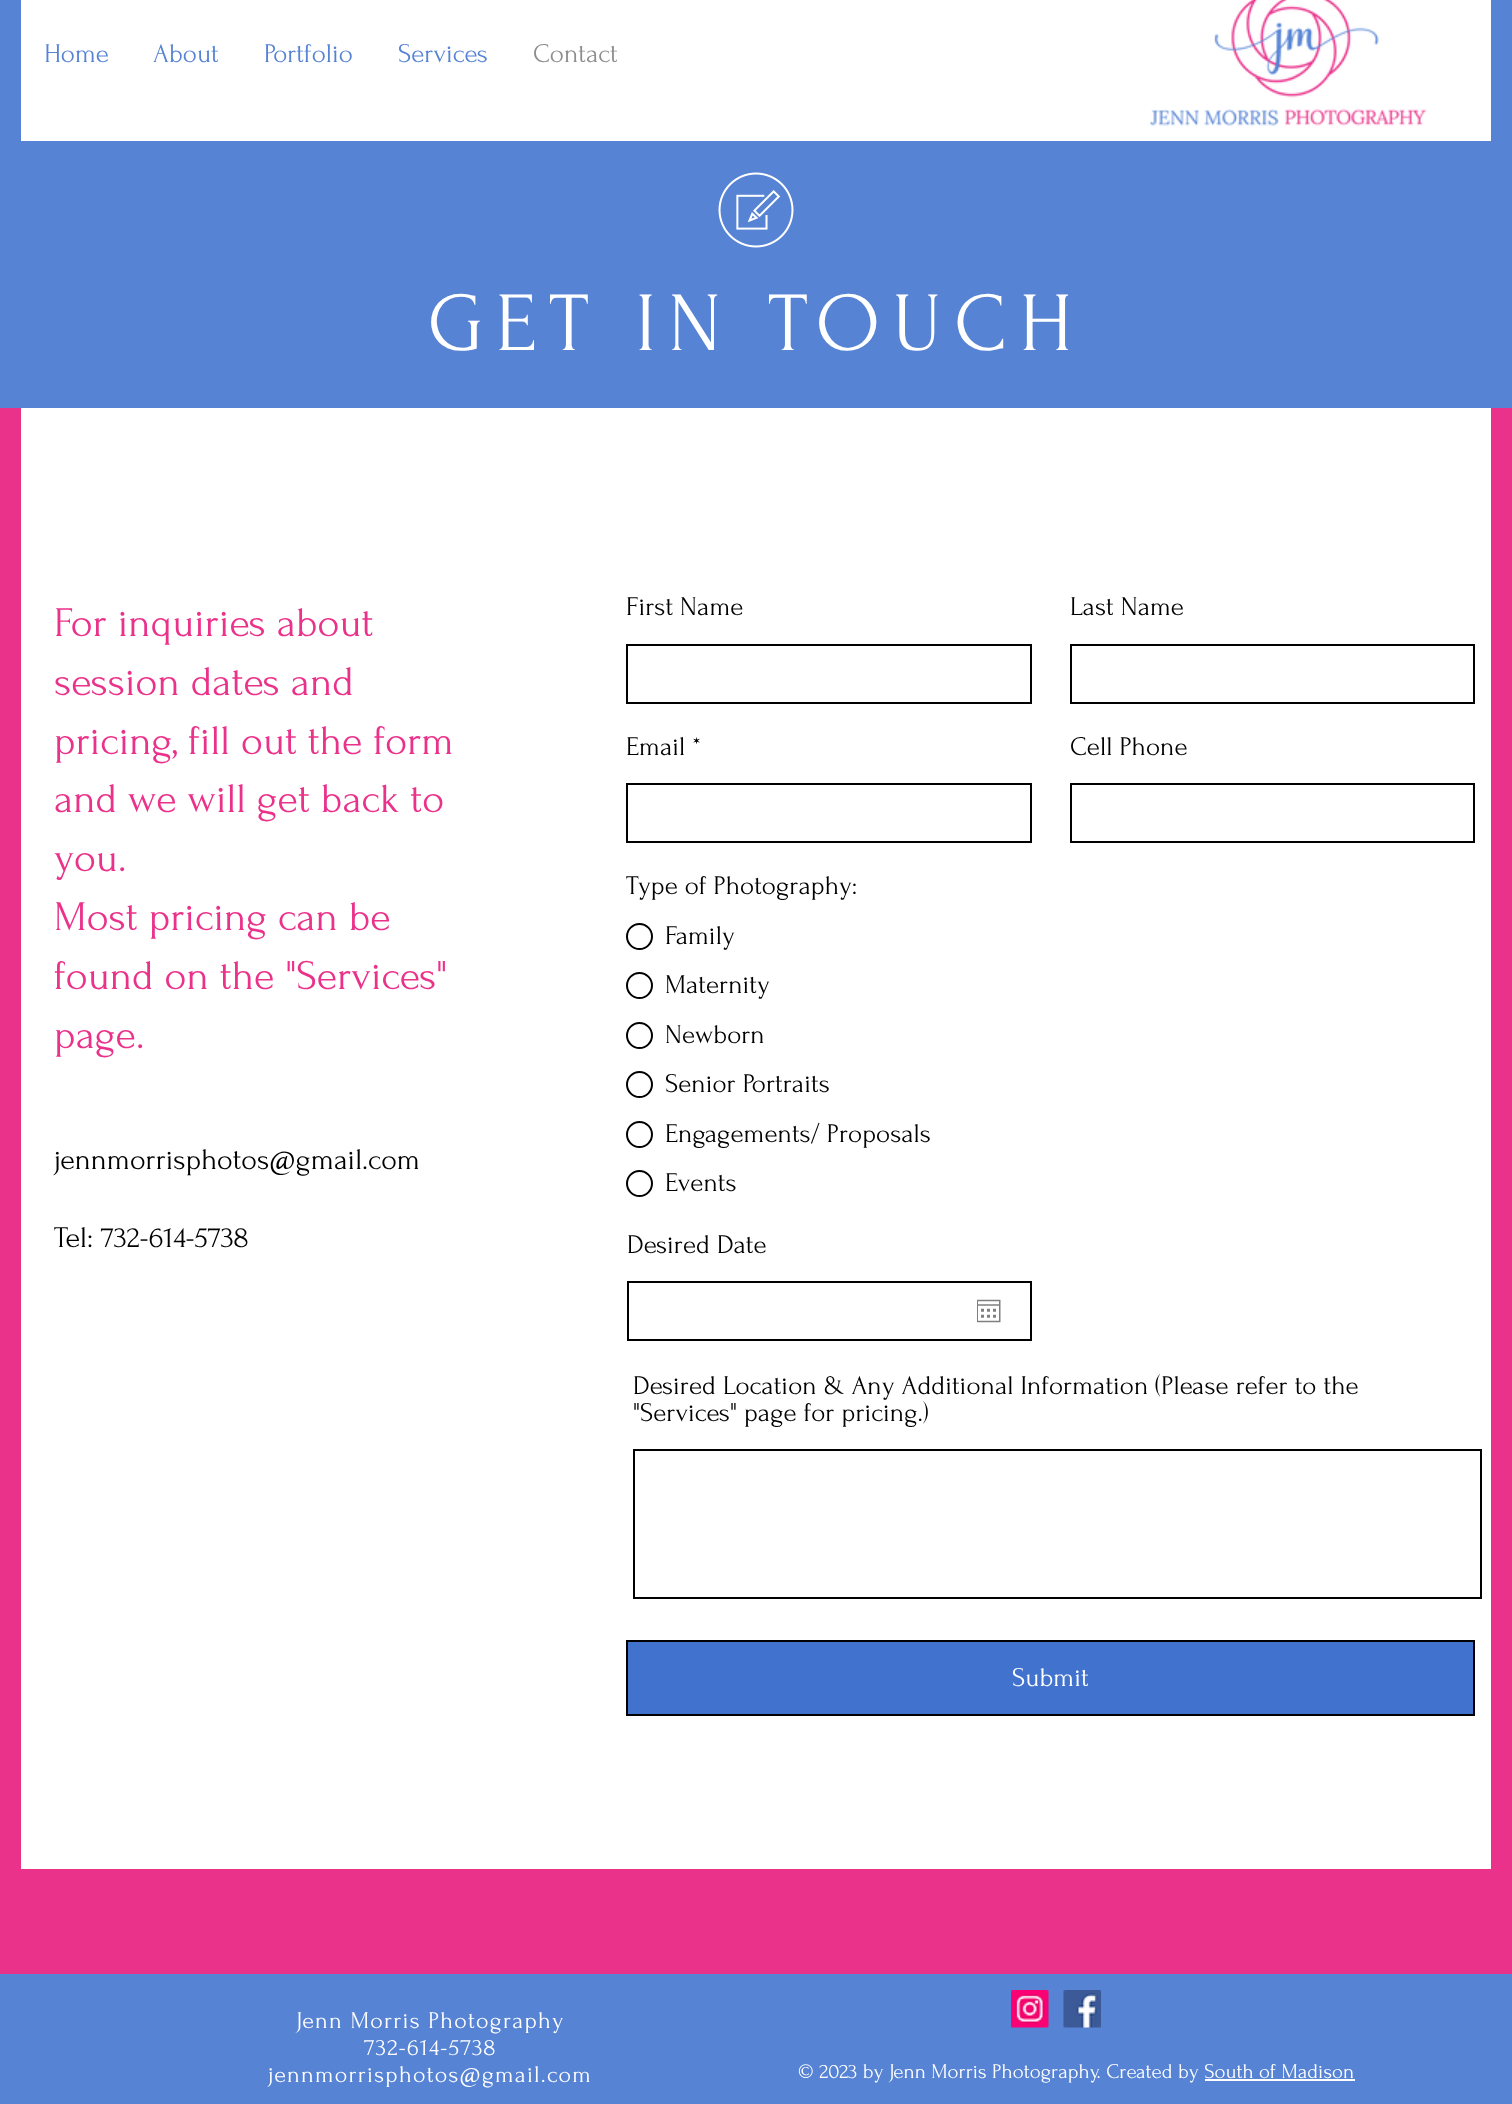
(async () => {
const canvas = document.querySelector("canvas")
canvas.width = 1512
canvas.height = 2104
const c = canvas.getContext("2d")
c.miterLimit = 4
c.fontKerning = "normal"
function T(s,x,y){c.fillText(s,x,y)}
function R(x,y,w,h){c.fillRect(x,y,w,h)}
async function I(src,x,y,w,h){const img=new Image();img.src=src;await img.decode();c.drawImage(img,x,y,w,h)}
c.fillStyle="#5683d4"
R(0,0,1512,2104)
c.fillStyle="#fff"
R(21,0,1470,141)
c.font="27px Forum"
c.fillStyle="#5683d4"
T("Home",44,62)
T("About",153,62)
T("Portfolio",264,62)
T("Services",398,62)
c.fillStyle="#8c8d8c"
T("Contact",533,62)
await I("1.png",1150,0,277,126)
await I("2.png",718,172,76,76)
c.letterSpacing="12.6px"
c.font="84px Forum"
c.fillStyle="#fff"
T("GET IN TOUCH",428,350)
c.fillStyle="#eb328b"
R(0,408,1512,1566)
c.fillStyle="#fff"
R(21,408,1470,1461)
c.letterSpacing="0px"
c.font="42px Forum"
c.fillStyle="#eb328b"
T("For inquiries about",54,636)
T("session dates and",54,695)
T("pricing, fill out the form",54,754)
T("and we will get back to",54,812)
T("you.",54,871)
T("Most pricing can be",54,930)
T("found on the \"Services\"",54,989)
T("page.",54,1048)
c.font="30px Forum"
c.fillStyle="#000"
T("jennmorrisphotos@gmail.com",54,1169)
T("Tel: 732-614-5738",54,1247)
c.font="27px Forum"
T("First Name",626,615)
c.strokeStyle="#000"
c.lineWidth=2
c.strokeRect(627,645,404,58)
T("Last Name",1070,615)
c.strokeRect(1071,645,403,58)
T("Email *",626,755)
c.strokeRect(627,784,404,58)
T("Cell Phone",1070,755)
c.strokeRect(1071,784,403,58)
T("Type of Photography:",626,894)
c.beginPath()
c.arc(639.5,936.5,12.5,0,7)
c.stroke()
T("Family",665,944)
c.beginPath()
c.arc(639.5,985.5,12.5,0,7)
c.stroke()
T("Maternity",665,993)
c.beginPath()
c.arc(639.5,1035.5,12.5,0,7)
c.stroke()
T("Newborn",665,1043)
c.beginPath()
c.arc(639.5,1084.5,12.5,0,7)
c.stroke()
T("Senior Portraits",665,1092)
c.beginPath()
c.arc(639.5,1134.5,12.5,0,7)
c.stroke()
T("Engagements/ Proposals",665,1142)
c.beginPath()
c.arc(639.5,1183.5,12.5,0,7)
c.stroke()
T("Events",665,1191)
T("Desired Date",627,1253)
c.strokeRect(628,1282,403,58)
await I("3.png",977,1299,24,24)
T("Desired Location & Any Additional Information (Please refer to the",633,1394)
T("\"Services\" page for pricing.)",633,1421)
c.strokeRect(634,1450,847,148)
c.fillStyle="#4072ce"
c.beginPath()
c.rect(627,1641,847,74)
c.fill()
c.stroke()
c.fillStyle="#fff"
T("Submit",1012,1686)
c.letterSpacing="1.2px"
c.font="24px Forum"
T("Jenn Morris Photography",296,2028)
T("732-614-5738",364,2055)
T("jennmorrisphotos@gmail.com",268,2082)
await I("4.png",1011,1990,38,38)
await I("5.png",1063,1990,38,38)
c.letterSpacing="0px"
c.font="21px Forum"
T("© 2023 by Jenn Morris Photography. Created by South of Madison",798,2078)
R(1205,2079,150,2)
})()
